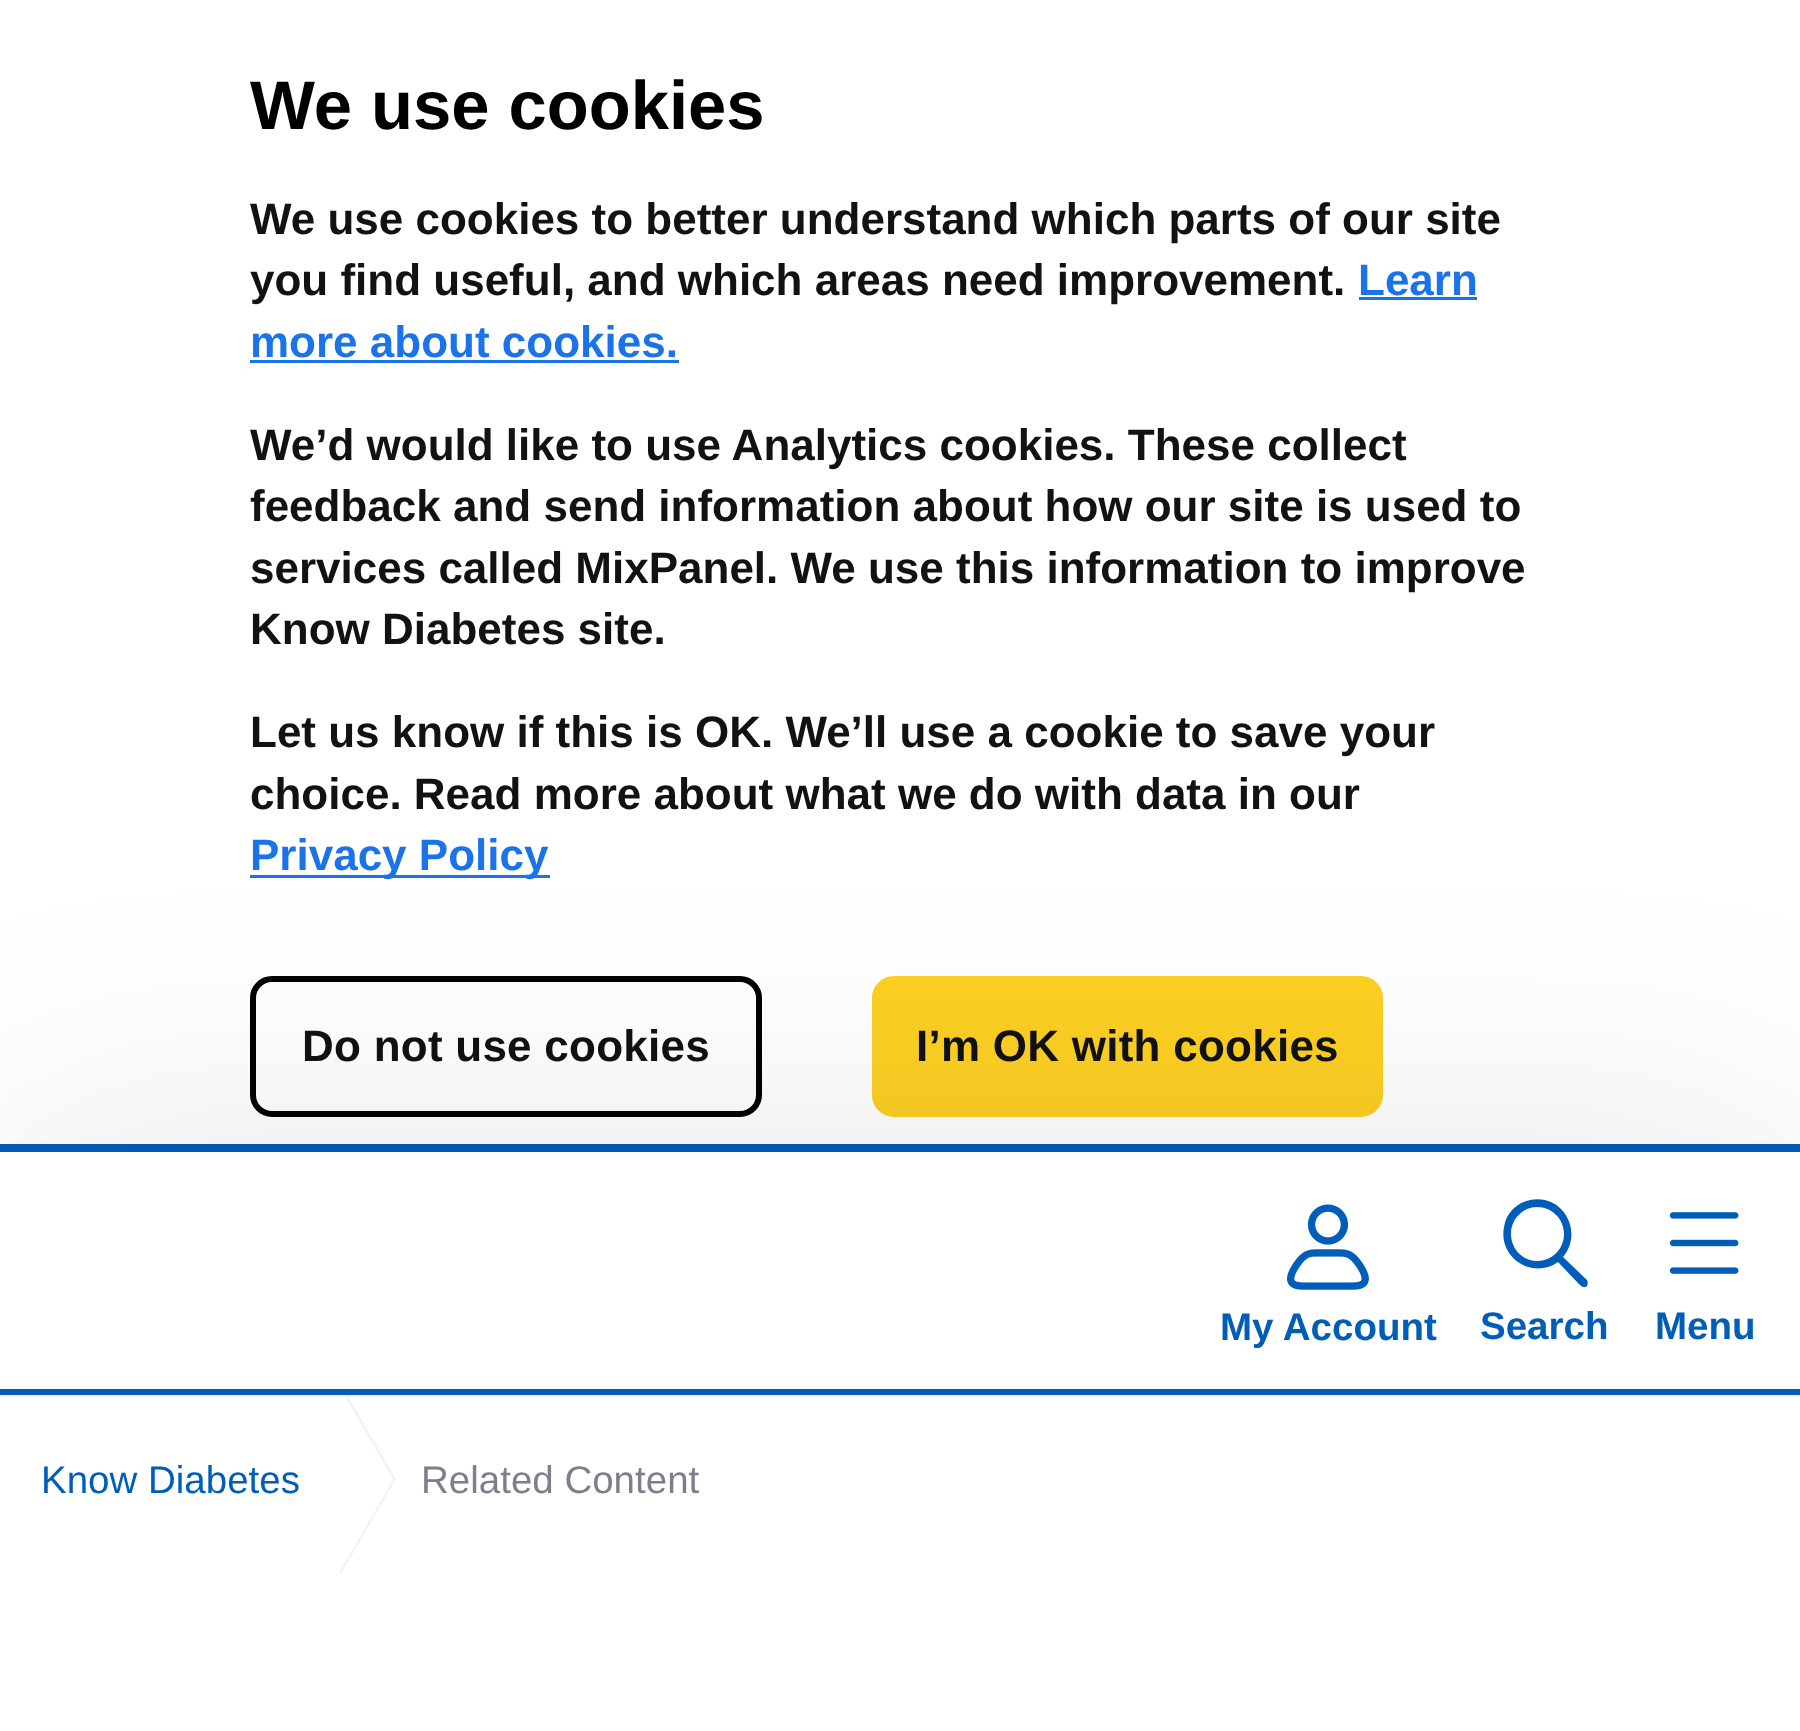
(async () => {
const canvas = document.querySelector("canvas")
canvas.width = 1800
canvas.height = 1731
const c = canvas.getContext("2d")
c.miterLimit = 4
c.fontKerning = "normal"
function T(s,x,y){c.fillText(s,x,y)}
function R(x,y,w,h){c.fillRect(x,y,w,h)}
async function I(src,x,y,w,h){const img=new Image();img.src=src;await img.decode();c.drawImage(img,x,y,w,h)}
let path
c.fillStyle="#fff"
R(0,0,1800,1731)
c.fillStyle="#005eb8"
R(0,1144,1800,8)
c.font="bold 68.75px Liberation Sans"
c.fillStyle="#000"
T("We use cookies",250,129)
c.font="bold 44px Liberation Sans"
c.fillStyle="#121212"
T("We use cookies to better understand which parts of our site",250,234)
T("you find useful, and which areas need improvement.",250,295)
c.fillStyle="#1a73e8"
T("Learn",1358,295)
R(1359,297,118,3)
T("more about cookies.",250,357)
R(250,360,429,3)
c.fillStyle="#121212"
T("We’d would like to use Analytics cookies. These collect",250,460)
T("feedback and send information about how our site is used to",250,521)
T("services called MixPanel. We use this information to improve",250,583)
T("Know Diabetes site.",250,644)
T("Let us know if this is OK. We’ll use a cookie to save your",250,747)
T("choice. Read more about what we do with data in our",250,809)
c.fillStyle="#1a73e8"
R(250,875,300,3)
T("Privacy Policy",250,870)
c.beginPath()
c.roundRect(253,979,506,135,19)
c.strokeStyle="#000"
c.lineWidth=6
c.stroke()
c.letterSpacing="0.25px"
c.fillStyle="#121212"
T("Do not use cookies",302,1061)
c.fillStyle="#fdd023"
c.beginPath()
c.roundRect(875,979,505,135,19)
c.fill()
c.strokeStyle="#fdd023"
c.stroke()
c.fillStyle="#121212"
T("I’m OK with cookies",916,1061)
c.fillStyle="#0000001a"
c.filter="blur(137.5px)"
c.beginPath()
c.rect(0,1152,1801,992)
c.fill()
c.filter="none"
c.fillStyle="#fff"
R(0,1152,1800,579)
c.fillStyle="#005eb8"
R(0,1389,1800,6)
await I("1.png",1287,1204,82,86)
c.letterSpacing="0px"
c.font="bold 38.5px Liberation Sans"
T("My Account",1220,1340)
c.save()
c.beginPath()
c.rect(1502,1199,88,88)
c.clip()
path = new Path2D("M1587 1280l-24-23c21-25 0-64-33-57c-6 1-12 4-17 9c-5 5-8 11-9 18c-6 31 29 53 54 35l19 20c2 2 7 8 10 4c1-2 1-4 0-6zm-76-46c0-15 12-27 26-27c15 0 27 12 27 27c0 15-12 27-27 27c-14 0-26-12-26-27z")
c.fill(path)
c.restore()
T("Search",1480,1339)
await I("2.png",1669,1212,70,62)
T("Menu",1655,1339)
c.fillStyle="#f4f4f4"
R(0,1395,1800,2)
c.font="38.5px Liberation Sans"
c.fillStyle="#005eb8"
T("Know Diabetes",41,1493)
c.save()
c.beginPath()
c.rect(0,1397,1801,272)
c.clip()
c.fillStyle="#f4f4f4"
path = new Path2D("M339 1386l2-2l55 95l-2 2z")
c.fill(path)
c.restore()
c.fillStyle="#f4f4f4"
path = new Path2D("M394 1478l2 1l-55 95l-2-1z")
c.fill(path)
c.fillStyle="#7e7e8c"
T("Related Content",421,1493)
})()
